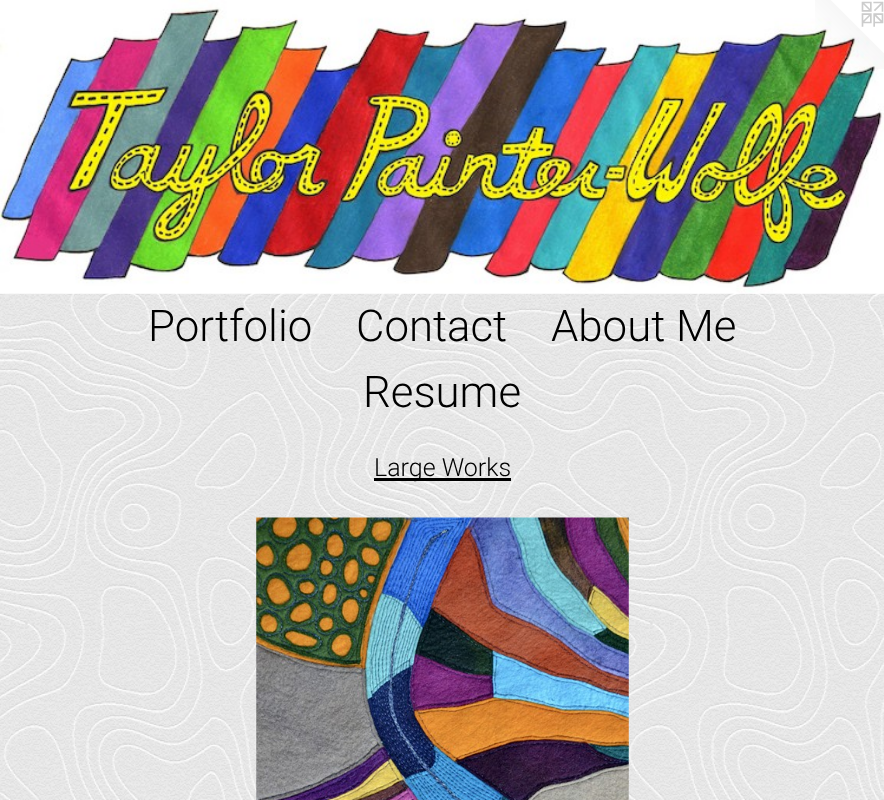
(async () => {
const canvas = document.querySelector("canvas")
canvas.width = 884
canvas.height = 800
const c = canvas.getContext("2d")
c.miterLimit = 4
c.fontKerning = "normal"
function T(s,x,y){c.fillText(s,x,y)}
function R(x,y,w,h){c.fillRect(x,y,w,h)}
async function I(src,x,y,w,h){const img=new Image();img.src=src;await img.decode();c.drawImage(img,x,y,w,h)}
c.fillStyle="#fff"
R(0,0,884,800)
await I("1.png",0,293,884,507)
await I("2.png",0,0,884,294)
await I("3.png",815,0,69,69)
c.font="300 43.75px Roboto"
c.fillStyle="#000"
T("Portfolio",148,341)
T("Contact",356,341)
T("About Me",551,341)
T("Resume",363,407)
R(374,478,137,3)
c.font="300 25px Roboto"
T("Large Works",374,476)
await I("4.png",256,517,373,283)
})()
